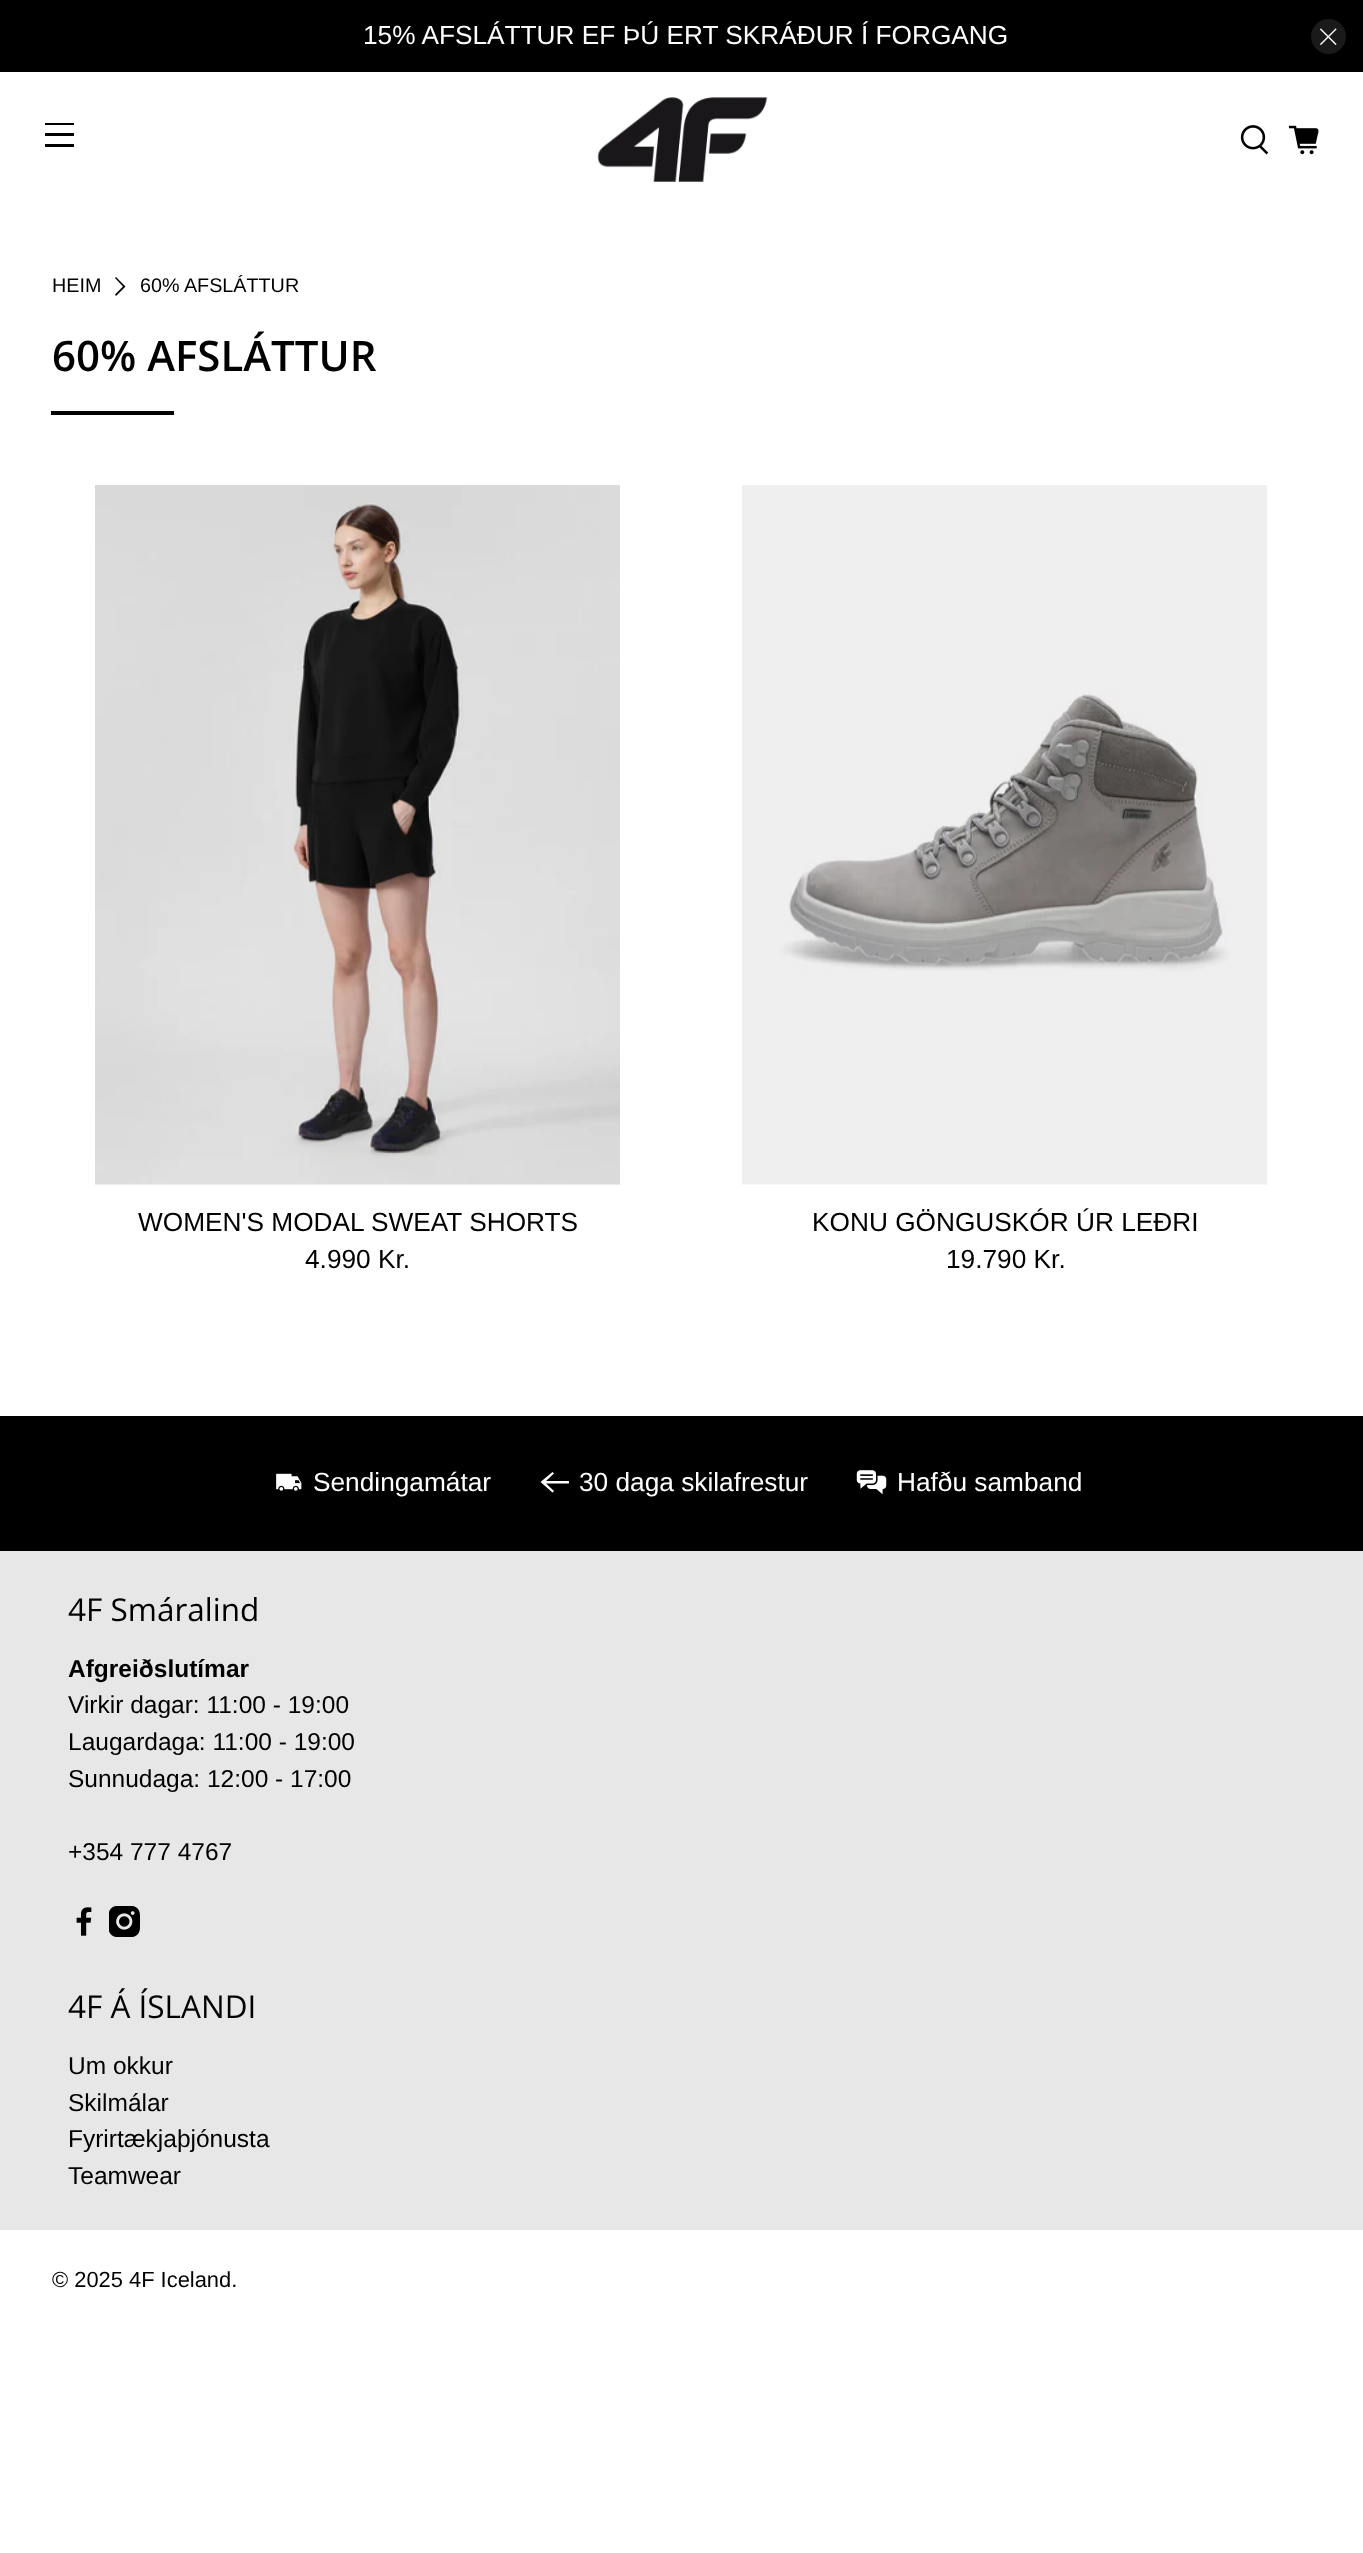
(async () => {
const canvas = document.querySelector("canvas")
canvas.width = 1363
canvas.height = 2553
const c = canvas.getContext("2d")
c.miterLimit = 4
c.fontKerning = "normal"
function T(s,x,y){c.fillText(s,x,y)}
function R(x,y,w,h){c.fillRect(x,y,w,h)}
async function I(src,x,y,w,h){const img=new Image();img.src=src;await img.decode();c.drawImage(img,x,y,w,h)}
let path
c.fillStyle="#fff"
R(0,0,1363,2553)
c.fillStyle="#000"
R(0,0,1363,72)
c.font="26.25px Liberation Sans"
c.fillStyle="#fff"
T("15% AFSLÁTTUR EF ÞÚ ERT SKRÁÐUR Í FORGANG",363,44)
c.fillStyle="#1a1a1a"
c.beginPath()
c.arc(1328.5,36.5,17.5,0,7)
c.fill()
await I("1.png",1320,28,17,17)
c.fillStyle="#000"
R(45,123,29,2)
R(45,133,29,3)
R(45,144,29,3)
await I("2.png",597,97,171,85)
await I("3.png",1240,125,29,30)
await I("4.png",1288,125,31,30)
c.font="19.75px Liberation Sans"
T("HEIM",52,292)
path = new Path2D("M116 296l-1-1.5l8-8l-8-8.5l1-1l9.5 9.5z")
c.fill(path)
T("60% AFSLÁTTUR",140,292)
c.font="600 42px Open Sans"
T("60% AFSLÁTTUR",52,371)
R(51,411,123,4)
await I("5.png",95,485,525,700)
c.font="26.25px Liberation Sans"
T("WOMEN'S MODAL SWEAT SHORTS",138,1231)
T("4.990 Kr.",305,1268)
await I("6.png",742,485,525,700)
T("KONU GÖNGUSKÓR ÚR LEÐRI",812,1231)
T("19.790 Kr.",946,1268)
R(0,1416,1363,135)
await I("7.png",276,1473,26,18)
c.fillStyle="#fff"
T("Sendingamátar",313,1491)
path = new Path2D("M569 1481h-23l8-7.5l-1.5-1.5l-12 10l12 10.5l1.5-1.5l-8-7.5h23z")
c.fill(path)
T("30 daga skilafrestur",579,1491)
await I("8.png",856,1470,31,25)
T("Hafðu samband",897,1491)
c.fillStyle="#e7e7e7"
R(0,1551,1363,679)
c.font="31.5px Open Sans"
c.fillStyle="#000"
T("4F Smáralind",68,1621)
c.font="bold 24.5px Liberation Sans"
T("Afgreiðslutímar",68,1677)
c.font="24.5px Liberation Sans"
T("Virkir dagar: 11:00 - 19:00",68,1713)
T("Laugardaga: 11:00 - 19:00",68,1750)
T("Sunnudaga: 12:00 - 17:00",68,1787)
T("+354 777 4767",68,1860)
await I("9.png",76,1907,16,29)
await I("10.png",109,1906,31,31)
c.font="31.5px Open Sans"
T("4F Á ÍSLANDI",68,2018)
c.font="24.5px Liberation Sans"
T("Um okkur",68,2074)
T("Skilmálar",68,2111)
T("Fyrirtækjaþjónusta",68,2147)
T("Teamwear",68,2184)
c.font="21.9px Liberation Sans"
T("© 2025 4F Iceland.",52,2287)
})()
